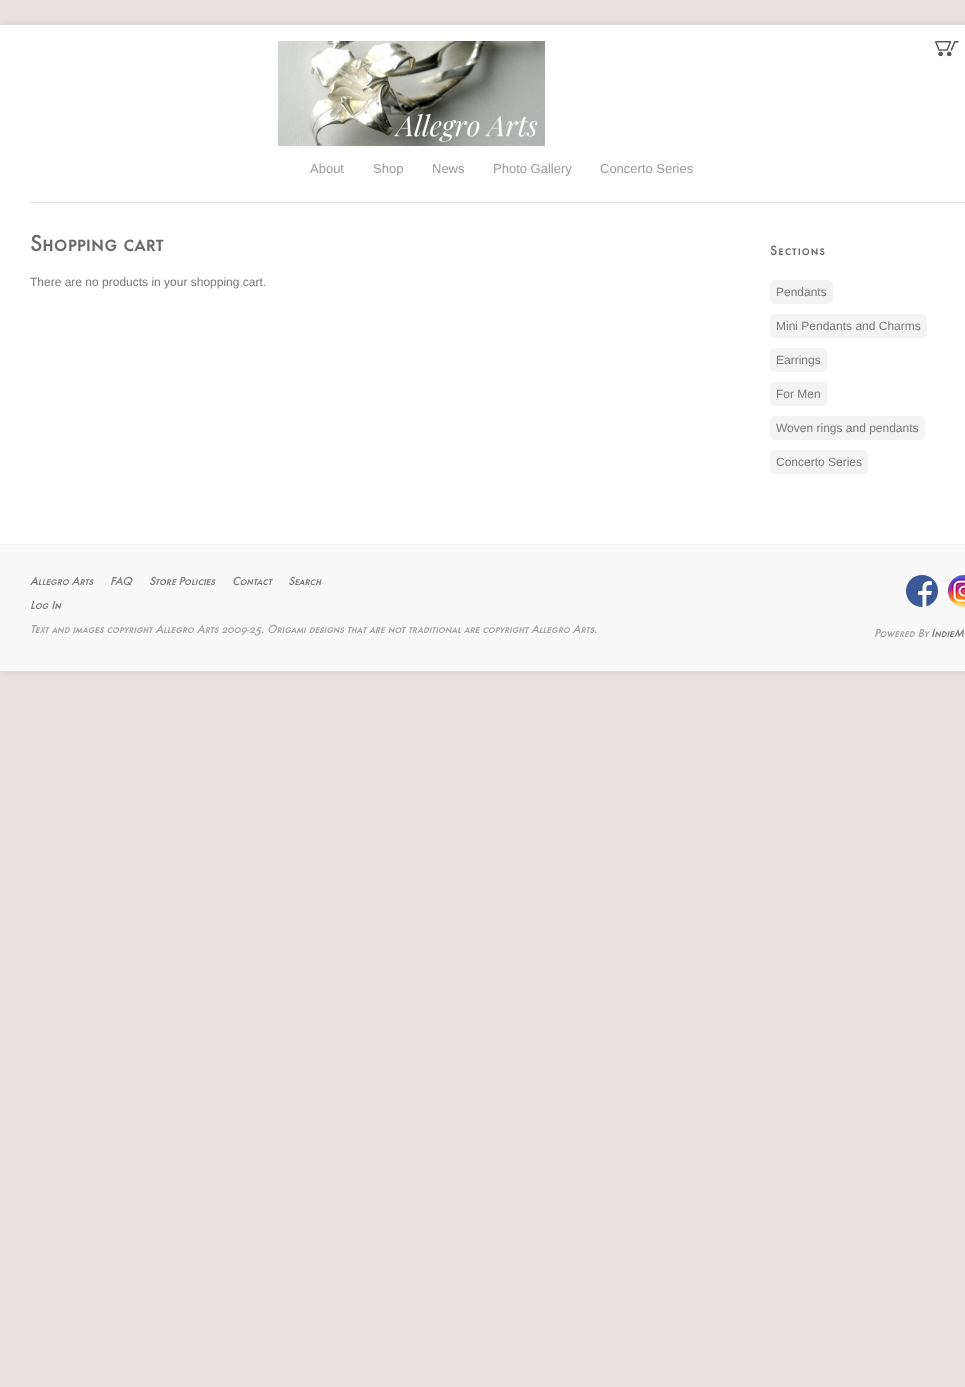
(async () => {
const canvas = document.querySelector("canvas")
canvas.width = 965
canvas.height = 1387
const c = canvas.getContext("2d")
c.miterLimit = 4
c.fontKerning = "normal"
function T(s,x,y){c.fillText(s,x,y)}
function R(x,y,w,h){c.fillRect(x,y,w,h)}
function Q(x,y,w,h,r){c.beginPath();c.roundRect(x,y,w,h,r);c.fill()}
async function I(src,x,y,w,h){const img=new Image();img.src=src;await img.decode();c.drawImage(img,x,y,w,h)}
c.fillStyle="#e7e2df"
R(0,0,965,1387)
c.fillStyle="#0000001a"
c.filter="blur(3px)"
c.beginPath()
c.rect(0,25,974,646)
c.fill()
c.filter="none"
c.fillStyle="#fff"
R(0,25,965,519)
c.fillStyle="#e3e3e3"
R(30,202,935,1)
await I("1.png",278,41,267,105)
await I("2.png",935,41,24,16)
c.font="13px Liberation Sans"
c.fillStyle="#9b9b9b"
T("About",310,173)
T("Shop",373,173)
T("News",432,173)
T("Photo Gallery",493,173)
T("Concerto Series",600,173)
c.font="500 24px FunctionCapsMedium"
c.fillStyle="#696969"
T("Shopping cart",30,251)
c.font="12px Liberation Sans"
c.fillStyle="#797979"
T("There are no products in your shopping cart.",30,286)
c.letterSpacing="1px"
c.font="500 14px FunctionCapsMedium"
c.fillStyle="#696969"
T("Sections",770,255)
c.fillStyle="#f3f3f3"
Q(770,280,63,24,5)
c.letterSpacing="0px"
c.font="12px Liberation Sans"
c.fillStyle="#797979"
T("Pendants",776,296)
c.fillStyle="#f3f3f3"
Q(770,314,157,24,5)
c.fillStyle="#797979"
T("Mini Pendants and Charms",776,330)
c.fillStyle="#f3f3f3"
Q(770,348,57,24,5)
c.fillStyle="#797979"
T("Earrings",776,364)
c.fillStyle="#f3f3f3"
Q(770,382,57,24,5)
c.fillStyle="#797979"
T("For Men",776,398)
c.fillStyle="#f3f3f3"
Q(770,416,155,24,5)
c.fillStyle="#797979"
T("Woven rings and pendants",776,432)
c.fillStyle="#f3f3f3"
Q(770,450,98,24,5)
c.fillStyle="#797979"
T("Concerto Series",776,466)
c.fillStyle="#faf9f9"
R(0,545,965,126)
c.fillStyle="#f3f3f3"
R(0,544,965,1)
c.font="italic 500 12px FunctionCapsMedium"
c.fillStyle="#797979"
T("Allegro Arts",30,585)
T("FAQ",110,585)
T("Store Policies",149,585)
T("Contact",232,585)
T("Search",288,585)
T("Log In",30,609)
c.fillStyle="#a2a2a2"
T("Text and images copyright Allegro Arts 2009-25. Origami designs that are not traditional are copyright Allegro Arts.",30,633)
await I("3.png",906,575,32,32)
await I("4.png",948,575,17,32)
T("Powered By",874,637)
c.fillStyle="#797979"
T("IndieM",931,637)
})()
